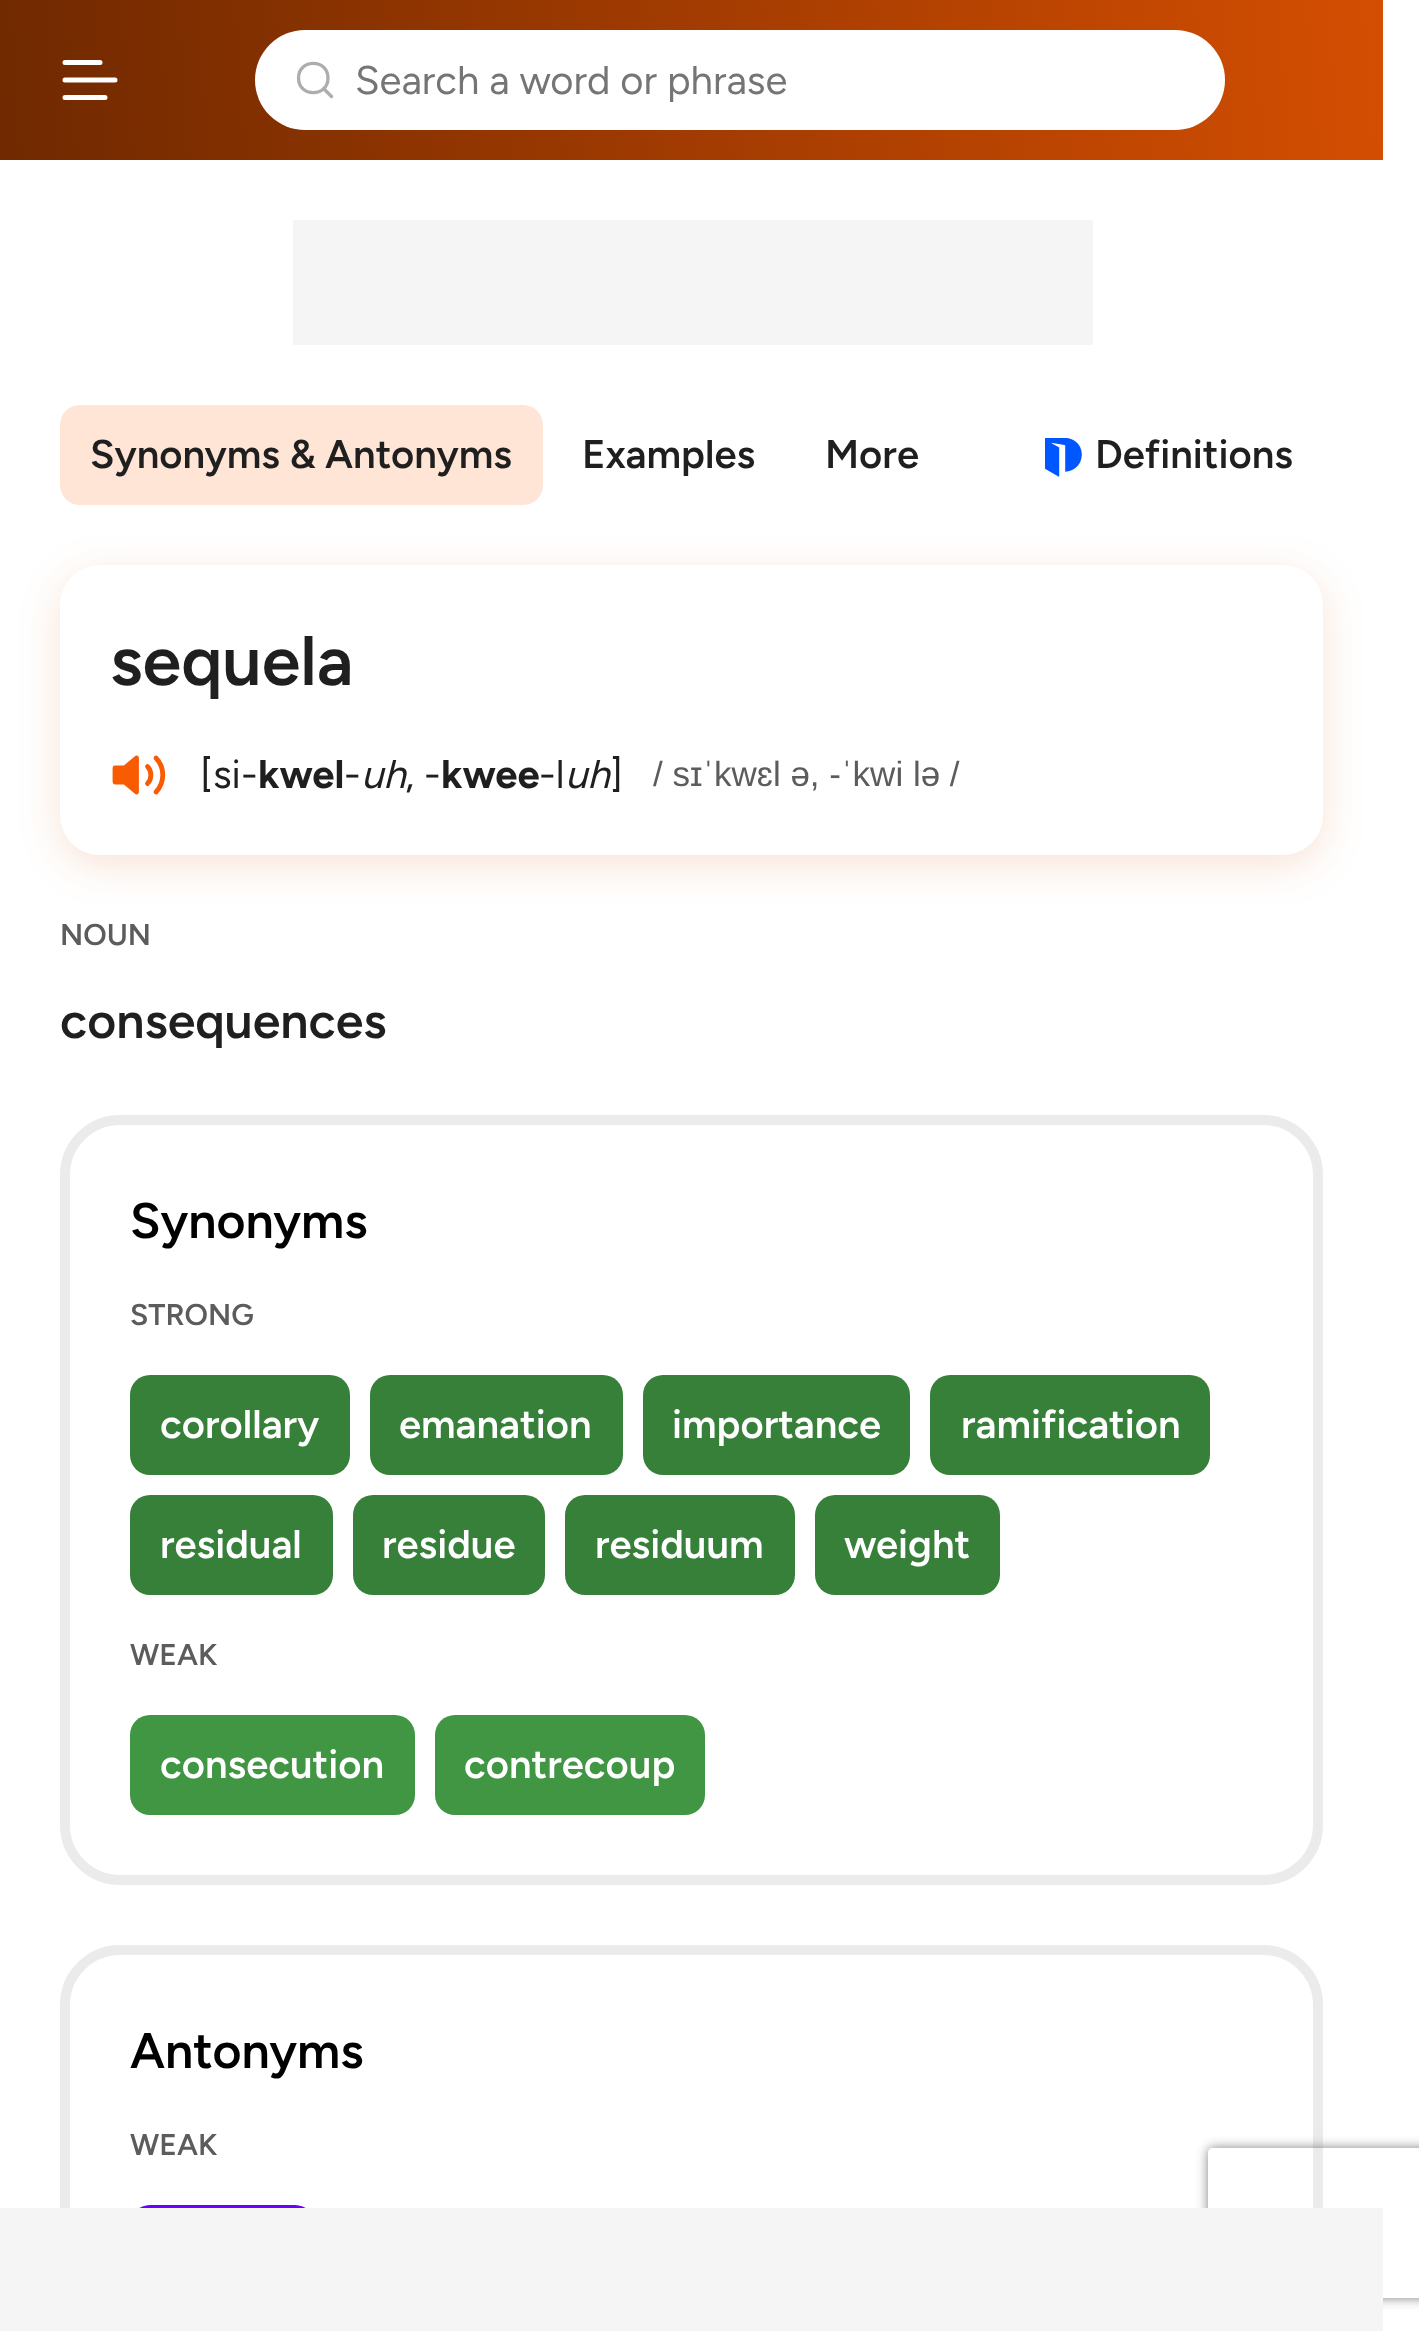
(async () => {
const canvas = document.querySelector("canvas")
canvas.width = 1419
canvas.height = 2331
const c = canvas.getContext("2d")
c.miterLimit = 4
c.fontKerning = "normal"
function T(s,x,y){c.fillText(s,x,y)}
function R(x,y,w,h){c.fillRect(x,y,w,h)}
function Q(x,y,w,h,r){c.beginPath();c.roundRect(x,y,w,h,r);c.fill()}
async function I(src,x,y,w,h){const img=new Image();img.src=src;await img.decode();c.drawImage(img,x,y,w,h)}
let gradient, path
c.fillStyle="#fff"
R(0,0,1419,2331)
gradient = c.createLinearGradient(-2.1,131,1385,29)
gradient.addColorStop(0,"#702900")
gradient.addColorStop(1,"#d44e02")
c.fillStyle = gradient
R(0,0,1383,160)
path = new Path2D("M65 62.5h35m-35 17.5h50m-50 17.5h40")
c.strokeStyle="#fff"
c.lineWidth=5
c.lineCap="round"
c.stroke(path)
c.fillStyle="#fff"
Q(255,30,970,100,50)
path = new Path2D("M331.5 96.5l-8-8m4.5-10.5c0 19.5-29.5 19.5-29.5 0c0-19.5 29.5-19.5 29.5 0z")
c.strokeStyle="#adadad"
c.lineWidth=3.3
c.lineJoin="round"
c.stroke(path)
c.font="40px Figtree"
c.fillStyle="#757575"
T("Search a word or phrase",355,94)
c.fillStyle="#f5f5f5"
R(293,220,800,125)
c.fillStyle="#ffe5d6"
Q(60,405,483,100,20)
c.font="600 40px Figtree"
c.fillStyle="#1f1f1f"
T("Synonyms & Antonyms",90,468)
T("Examples",582,468)
T("More",825,468)
await I("1.png",1045,438,37,39)
T("Definitions",1095,468)
c.save()
path = new Path2D("M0 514h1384v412h-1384zm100 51h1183c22 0 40 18 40 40v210c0 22-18 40-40 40h-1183c-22 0-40-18-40-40v-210c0-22 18-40 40-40z")
c.clip(path,"evenodd")
c.fillStyle="#d44e0229"
c.filter="blur(20px)"
c.beginPath()
c.roundRect(60,575,1263,290,40)
c.fill()
c.filter="none"
c.restore()
c.font="600 70px Figtree"
T("sequela",110,685)
c.fillStyle="#f95b02"
path = new Path2D("M136.5 758l-12 10h-9.5v14h9.5l12 10z")
c.fill(path)
path = new Path2D("M156 758c9 9.5 9 24.5 0 34m-8.5-25.5c4.5 4.5 4.5 12.5 0 17m-11-25.5l-12 10h-9.5v14h9.5l12 10z")
c.strokeStyle="#f95b02"
c.lineWidth=4.8
c.stroke(path)
c.font="40px Figtree"
c.fillStyle="#1f1f1f"
T("[si-",200,788)
c.font="bold 40px Figtree"
T("kwel",258,788)
c.font="40px Figtree"
T("-",344,788)
c.font="italic 40px Figtree"
T("uh",361,788)
c.font="40px Figtree"
T(", -",405,788)
c.font="bold 40px Figtree"
T("kwee",441,788)
c.font="40px Figtree"
T("-l",539,788)
c.font="italic 40px Figtree"
T("uh",565,788)
c.font="40px Figtree"
T("]",610,788)
c.font="35px Liberation Sans"
c.fillStyle="#5c5c5c"
T("/ sɪˈkwɛl ə, -ˈkwi lə /",653,786)
c.font="600 30px Figtree"
T("NOUN",60,945)
c.font="600 50px Figtree"
c.fillStyle="#1f1f1f"
T("consequences",60,1038)
c.beginPath()
c.roundRect(65,1120,1253,760,55)
c.strokeStyle="#ebebeb"
c.lineWidth=10
c.lineJoin="miter"
c.stroke()
c.fillStyle="#000"
T("Synonyms",130,1238)
c.font="600 30px Figtree"
c.fillStyle="#5c5c5c"
T("STRONG",130,1325)
c.fillStyle="#37803a"
Q(130,1375,220,100,20)
c.font="600 40px Figtree"
c.fillStyle="#fff"
T("corollary",160,1438)
c.fillStyle="#37803a"
Q(370,1375,253,100,20)
c.fillStyle="#fff"
T("emanation",399,1438)
c.fillStyle="#37803a"
Q(643,1375,267,100,20)
c.fillStyle="#fff"
T("importance",672,1438)
c.fillStyle="#37803a"
Q(930,1375,280,100,20)
c.fillStyle="#fff"
T("ramification",961,1438)
c.fillStyle="#37803a"
Q(130,1495,203,100,20)
c.fillStyle="#fff"
T("residual",160,1558)
c.fillStyle="#37803a"
Q(353,1495,192,100,20)
c.fillStyle="#fff"
T("residue",382,1558)
c.fillStyle="#37803a"
Q(565,1495,230,100,20)
c.fillStyle="#fff"
T("residuum",595,1558)
c.fillStyle="#37803a"
Q(815,1495,185,100,20)
c.fillStyle="#fff"
T("weight",844,1558)
c.font="600 30px Figtree"
c.fillStyle="#5c5c5c"
T("WEAK",130,1665)
c.fillStyle="#419644"
Q(130,1715,285,100,20)
c.font="600 40px Figtree"
c.fillStyle="#fff"
T("consecution",160,1778)
c.fillStyle="#419644"
Q(435,1715,270,100,20)
c.fillStyle="#fff"
T("contrecoup",464,1778)
c.beginPath()
c.roundRect(65,1950,1253,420,55)
c.stroke()
c.font="600 50px Figtree"
c.fillStyle="#000"
T("Antonyms",130,2068)
c.font="600 30px Figtree"
c.fillStyle="#5c5c5c"
T("WEAK",130,2155)
c.fillStyle="#6a00ff"
Q(130,2205,185,100,20)
c.save()
path = new Path2D("M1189 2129h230v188h-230zm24 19h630c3 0 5 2 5 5v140c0 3-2 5-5 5h-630c-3 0-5-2-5-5v-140c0-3 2-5 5-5z")
c.clip(path,"evenodd")
c.fillStyle="#808080"
c.filter="blur(6px)"
c.beginPath()
c.roundRect(1208,2148,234,150,5)
c.fill()
c.filter="none"
c.restore()
c.fillStyle="#f5f5f5"
R(0,2208,1383,123)
})()
